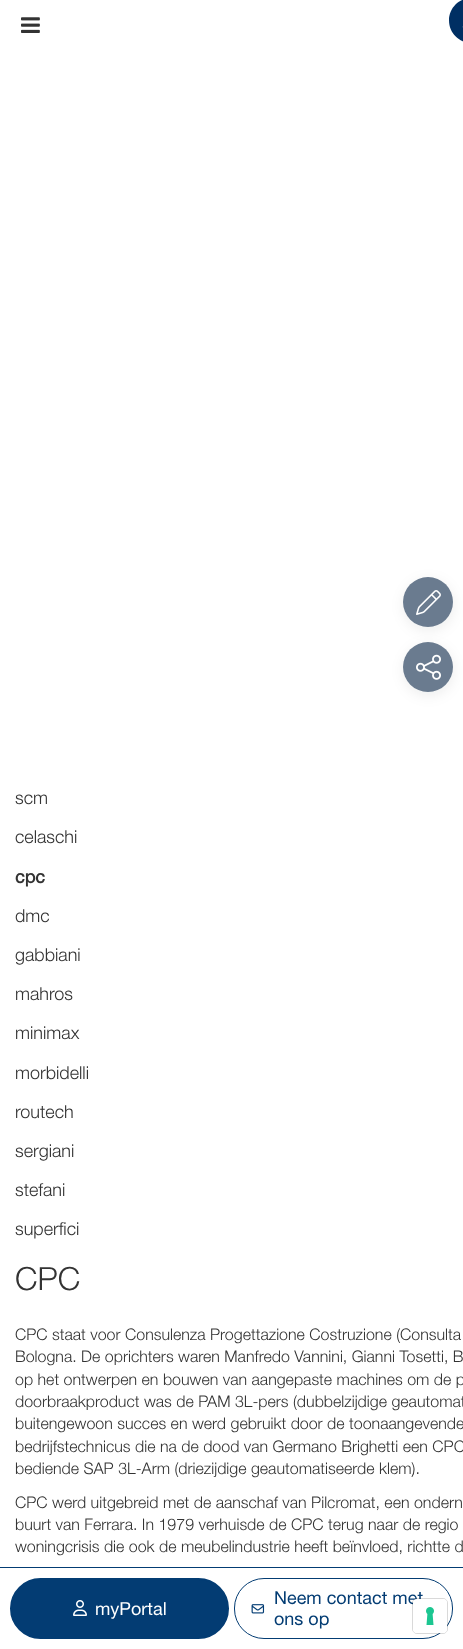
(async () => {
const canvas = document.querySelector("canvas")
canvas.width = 463
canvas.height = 1649
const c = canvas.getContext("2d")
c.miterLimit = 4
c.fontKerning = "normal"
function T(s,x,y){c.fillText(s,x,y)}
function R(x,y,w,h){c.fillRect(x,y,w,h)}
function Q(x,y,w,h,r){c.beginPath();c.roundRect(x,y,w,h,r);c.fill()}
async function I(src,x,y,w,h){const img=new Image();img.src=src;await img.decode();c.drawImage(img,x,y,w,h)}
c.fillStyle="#fff"
R(0,0,463,1649)
c.fillStyle="#00081014"
c.filter="blur(7px)"
c.beginPath()
c.roundRect(404,581,49,49,24.5)
c.fill()
c.filter="none"
c.fillStyle="#6a7b8f"
c.beginPath()
c.arc(428,602,25,0,7)
c.fill()
await I("1.png",416,590,25,25)
c.fillStyle="#00081014"
c.filter="blur(7px)"
c.beginPath()
c.roundRect(404,646,49,49,24.5)
c.fill()
c.filter="none"
c.fillStyle="#6a7b8f"
c.beginPath()
c.arc(428,667,25,0,7)
c.fill()
await I("2.png",416,654,25,26)
await I("3.png",21,17,19,16)
await I("4.png",449,0,14,42)
c.font="300 18px Helvetica Neue"
c.fillStyle="#333"
T("scm",15,804)
T("celaschi",15,843)
c.font="bold 18px Helvetica Neue"
T("cpc",15,883)
c.font="300 18px Helvetica Neue"
T("dmc",15,922)
T("gabbiani",15,961)
T("mahros",15,1000)
T("minimax",15,1039)
T("morbidelli",15,1079)
T("routech",15,1118)
T("sergiani",15,1157)
T("stefani",15,1196)
T("superfici",15,1235)
c.font="300 32px Helvetica Neue"
T("CPC",15,1290)
c.font="300 16px Helvetica Neue"
T("CPC staat voor Consulenza Progettazione Costruzione (Consulta",15,1340)
T("Bologna. De oprichters waren Manfredo Vannini, Gianni Tosetti, B",15,1362)
T("op het ontwerpen en bouwen van aangepaste machines om de p",15,1385)
T("doorbraakproduct was de PAM 3L-pers (dubbelzijdige geautomat",15,1407)
T("buitengewoon succes en werd gebruikt door de toonaangevende",15,1429)
T("bedrijfstechnicus die na de dood van Germano Brighetti een CPC",15,1452)
T("bediende SAP 3L-Arm (driezijdige geautomatiseerde klem).",15,1474)
T("CPC werd uitgebreid met de aanschaf van Pilcromat, een ondern",15,1508)
T("buurt van Ferrara. In 1979 verhuisde de CPC terug naar de regio",15,1530)
T("woningcrisis die ook de meubelindustrie heeft beïnvloed, richtte d",15,1552)
c.fillStyle="#033c73"
R(0,1567,463,1)
c.beginPath()
c.roundRect(11,1579,217,59,29.5)
c.fill()
c.strokeStyle="#033c73"
c.lineWidth=2
c.stroke()
await I("5.png",73,1600,14,16)
c.font="18px Helvetica Neue"
c.fillStyle="#fff"
T("myPortal",95,1615)
c.beginPath()
c.roundRect(234.5,1578.5,218,60,29.5)
c.lineWidth=1
c.stroke()
c.fillStyle="#033c73"
T("Neem contact met",274,1604)
await I("6.png",251,1604,14,10)
T("ons op",274,1625)
c.beginPath()
c.roundRect(412.5,1598.5,35,35,4.5)
c.strokeStyle="#00000026"
c.stroke()
c.fillStyle="#fff"
Q(413,1599,34,34,4)
await I("7.png",426,1607,8,18)
})()
